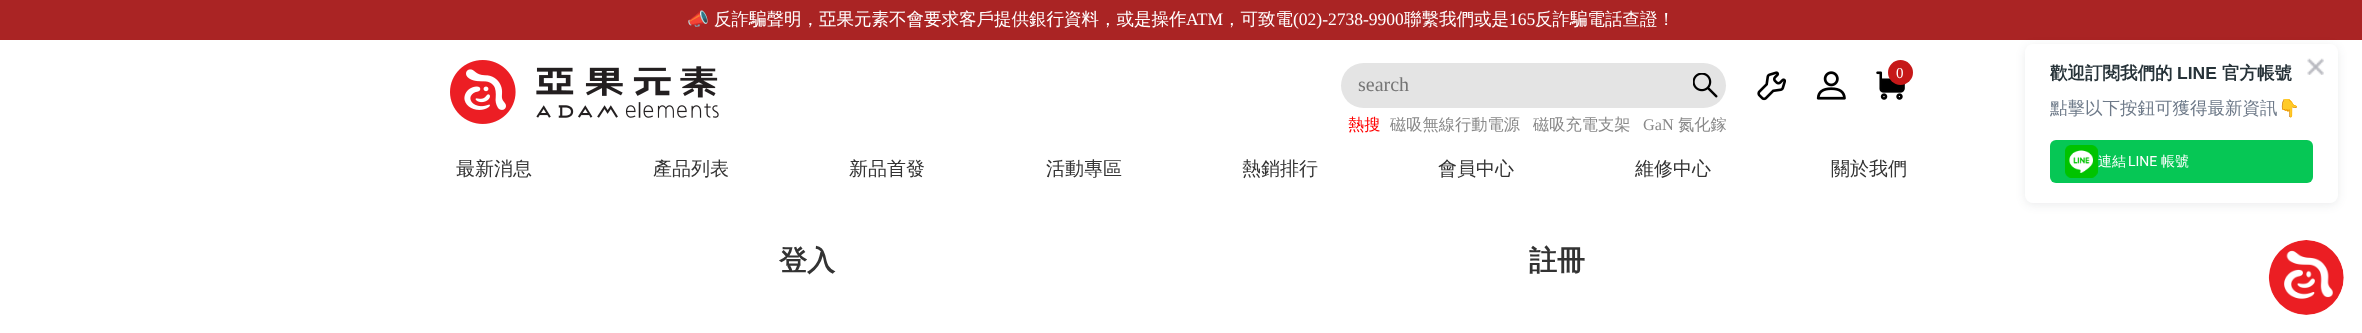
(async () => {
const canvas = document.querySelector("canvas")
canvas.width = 2362
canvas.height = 333
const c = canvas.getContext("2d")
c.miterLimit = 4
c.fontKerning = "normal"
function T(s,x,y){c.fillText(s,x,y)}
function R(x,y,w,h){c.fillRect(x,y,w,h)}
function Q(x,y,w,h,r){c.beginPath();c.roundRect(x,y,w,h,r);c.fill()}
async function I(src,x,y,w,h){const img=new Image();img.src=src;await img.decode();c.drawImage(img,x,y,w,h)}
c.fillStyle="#fff"
R(0,0,2362,333)
c.fillStyle="#aa2424"
R(0,0,2362,40)
c.font="17.5px Noto Color Emoji"
c.fillStyle="#fff"
T("📣",687,25)
c.font="500 17.5px WenQuanYi Zen Hei"
T("反詐騙聲明，亞果元素不會要求客戶提供銀行資料，或是操作",714,25)
c.font="17.5px Liberation Serif"
T("ATM",1186,25)
c.font="500 17.5px WenQuanYi Zen Hei"
T("，可致電",1223,25)
c.font="17.5px Liberation Serif"
T("(02)-2738-9900",1293,25)
c.font="500 17.5px WenQuanYi Zen Hei"
T("聯繫我們或是",1404,25)
c.font="17.5px Liberation Serif"
T("165",1509,25)
c.font="500 17.5px WenQuanYi Zen Hei"
T("反詐騙電話查證！",1535,25)
await I("1.png",450,60,269,64)
c.fillStyle="#e4e4e4"
Q(1341,63,385,45,22.5)
c.font="20px Liberation Serif"
c.fillStyle="#757575"
T("search",1358,91)
await I("2.png",1693,73,25,25)
c.font="500 16.25px WenQuanYi Zen Hei"
c.fillStyle="#f00"
T("熱搜",1348,130)
c.fillStyle="#898989"
T("磁吸無線行動電源",1390,130)
T("磁吸充電支架",1533,130)
c.font="16.25px Liberation Serif"
T("GaN",1643,130)
c.font="500 16.25px WenQuanYi Zen Hei"
T("氮化鎵",1678,130)
await I("3.png",1757,71,29,30)
await I("4.png",1816,71,30,29)
await I("5.png",1876,71,29,29)
c.fillStyle="#c61818"
c.beginPath()
c.arc(1900.5,72.5,12.5,0,7)
c.fill()
c.font="15px Liberation Serif"
c.fillStyle="#fff"
T("0",1896,78)
c.font="500 19px WenQuanYi Zen Hei"
c.fillStyle="#333"
T("最新消息",456,175)
T("產品列表",653,175)
T("新品首發",849,175)
T("活動專區",1046,175)
T("熱銷排行",1242,175)
T("會員中心",1438,175)
T("維修中心",1635,175)
T("關於我們",1831,175)
c.font="bold 28px WenQuanYi Zen Hei"
T("登入",779,270)
T("註冊",1529,270)
c.fillStyle="#232f3517"
c.filter="blur(5px)"
c.beginPath()
c.roundRect(2025,46,313,159,8)
c.fill()
c.filter="none"
c.fillStyle="#fff"
Q(2025,44,313,159,8)
c.font="bold 17.5px WenQuanYi Zen Hei"
c.fillStyle="#263238"
T("歡迎訂閱我們的",2050,79)
c.font="bold 17.5px Liberation Sans"
T("LINE",2177,79)
c.font="bold 17.5px WenQuanYi Zen Hei"
T("官方帳號",2222,79)
await I("6.png",2307,58,17,17)
c.font="500 17.5px WenQuanYi Zen Hei"
c.fillStyle="#6e7a89"
T("點擊以下按鈕可獲得最新資訊",2050,114)
c.font="17.5px Noto Color Emoji"
T("👇",2278,114)
c.fillStyle="#06c755"
Q(2050,140,263,43,6)
await I("7.png",2065,145,33,33)
c.font="500 14px WenQuanYi Zen Hei"
c.fillStyle="#fff"
T("連結",2098,166)
c.font="14px Roboto"
T("LINE",2128,166)
c.font="500 14px WenQuanYi Zen Hei"
T("帳號",2161,166)
await I("8.png",2268,240,76,75)
})()
